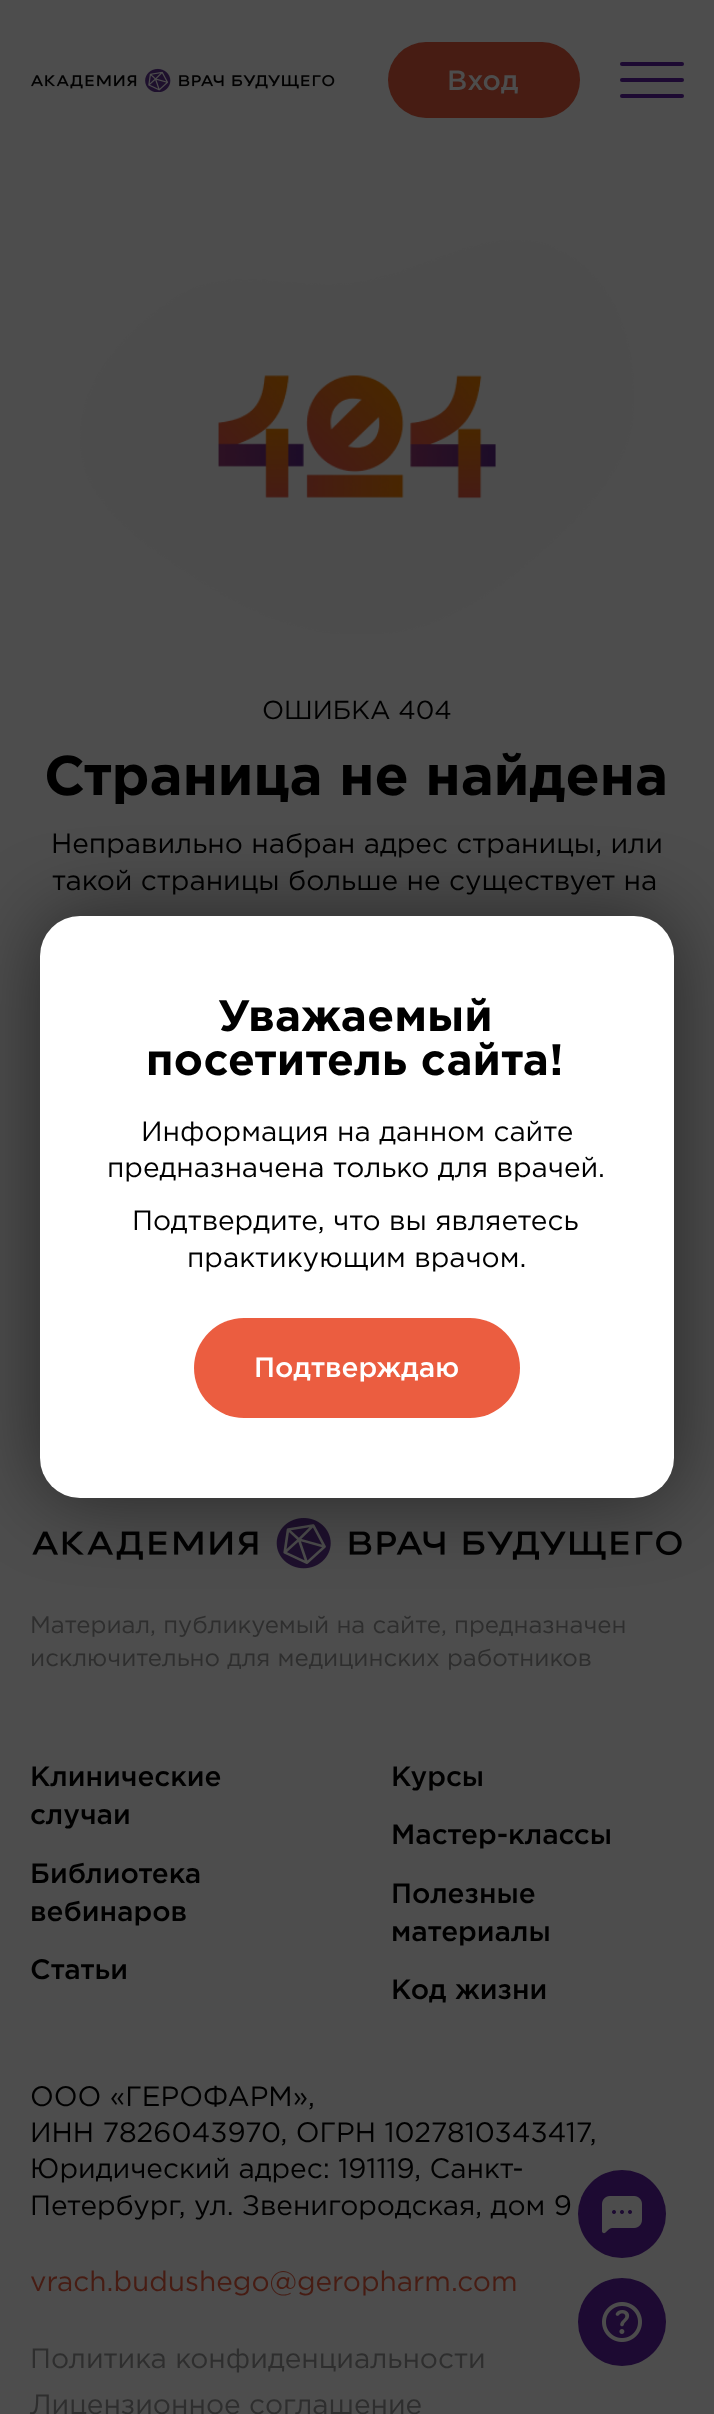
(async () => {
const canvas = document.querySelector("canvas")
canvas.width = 714
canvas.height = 2414
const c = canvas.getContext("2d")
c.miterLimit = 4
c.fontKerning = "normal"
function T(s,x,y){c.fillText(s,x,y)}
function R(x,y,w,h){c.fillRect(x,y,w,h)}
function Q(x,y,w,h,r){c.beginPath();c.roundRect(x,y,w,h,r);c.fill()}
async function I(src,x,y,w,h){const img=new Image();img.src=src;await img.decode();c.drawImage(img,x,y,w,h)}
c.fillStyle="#4d4d4d"
R(0,0,714,2414)
await I("1.png",31,68,304,24)
c.fillStyle="#471c13"
Q(388,42,192,76,38)
c.font="500 28px Gotham"
c.fillStyle="#4d4d4d"
T("Вход",447,90)
c.fillStyle="#1d0a32"
Q(620,78,64,4,2)
Q(620,62,64,4,2)
Q(620,94,64,4,2)
await I("2.png",80,240,554,394)
c.font="26px Gotham"
c.fillStyle="#000"
T("ОШИБКА 404",262,719)
c.font="bold 56px Gotham"
T("Страница не найдена",44,795)
c.font="28px Gotham"
T("Неправильно набран адрес страницы, или",51,853)
T("такой страницы больше не существует на",52,890)
await I("3.png",32,1518,650,51)
c.font="24px Gotham"
c.fillStyle="#2e2e2e"
T("Материал, публикуемый на сайте, предназначен",30,1633)
T("исключительно для медицинских работников",30,1666)
c.font="500 28px Gotham"
c.fillStyle="#000"
T("Клинические",30,1786)
T("случаи",30,1824)
T("Курсы",391,1786)
T("Мастер-классы",391,1844)
T("Библиотека",30,1883)
T("вебинаров",30,1921)
T("Полезные",391,1903)
T("материалы",391,1941)
T("Статьи",30,1979)
T("Код жизни",391,1999)
c.font="28px Gotham"
T("ООО «ГЕРОФАРМ»,",30,2106)
T("ИНН 7826043970, ОГРН 1027810343417,",30,2142)
T("Юридический адрес: 191119, Санкт-",30,2178)
T("Петербург, ул. Звенигородская, дом 9",30,2215)
c.fillStyle="#471c13"
T("vrach.budushego@geropharm.com",30,2291)
c.fillStyle="#2e2e2e"
T("Политика конфиденциальности",30,2368)
T("Лицензионное соглашение",30,2414)
c.fillStyle="#00000080"
c.filter="blur(40px)"
c.beginPath()
c.roundRect(40,916,634,582,40)
c.fill()
c.filter="none"
c.fillStyle="#fff"
Q(40,916,634,582,40)
c.letterSpacing="0.4px"
c.font="bold 44px Gotham"
c.fillStyle="#000"
T("Уважаемый",218,1031)
T("посетитель сайта!",146,1075)
c.letterSpacing="0px"
c.font="28px Gotham"
T("Информация на данном сайте",141,1141)
T("предназначена только для врачей.",107,1177)
T("Подтвердите, что вы являетесь",132,1230)
T("практикующим врачом.",187,1267)
c.fillStyle="#eb5d40"
Q(194,1318,326,100,50)
c.font="500 28px Gotham"
c.fillStyle="#fff"
T("Подтверждаю",254,1377)
c.fillStyle="#1d0a32"
c.beginPath()
c.arc(622,2214,44,0,7)
c.fill()
await I("4.png",602,2196,40,38)
c.beginPath()
c.arc(622,2322,44,0,7)
c.fill()
await I("5.png",602,2302,40,40)
})()
